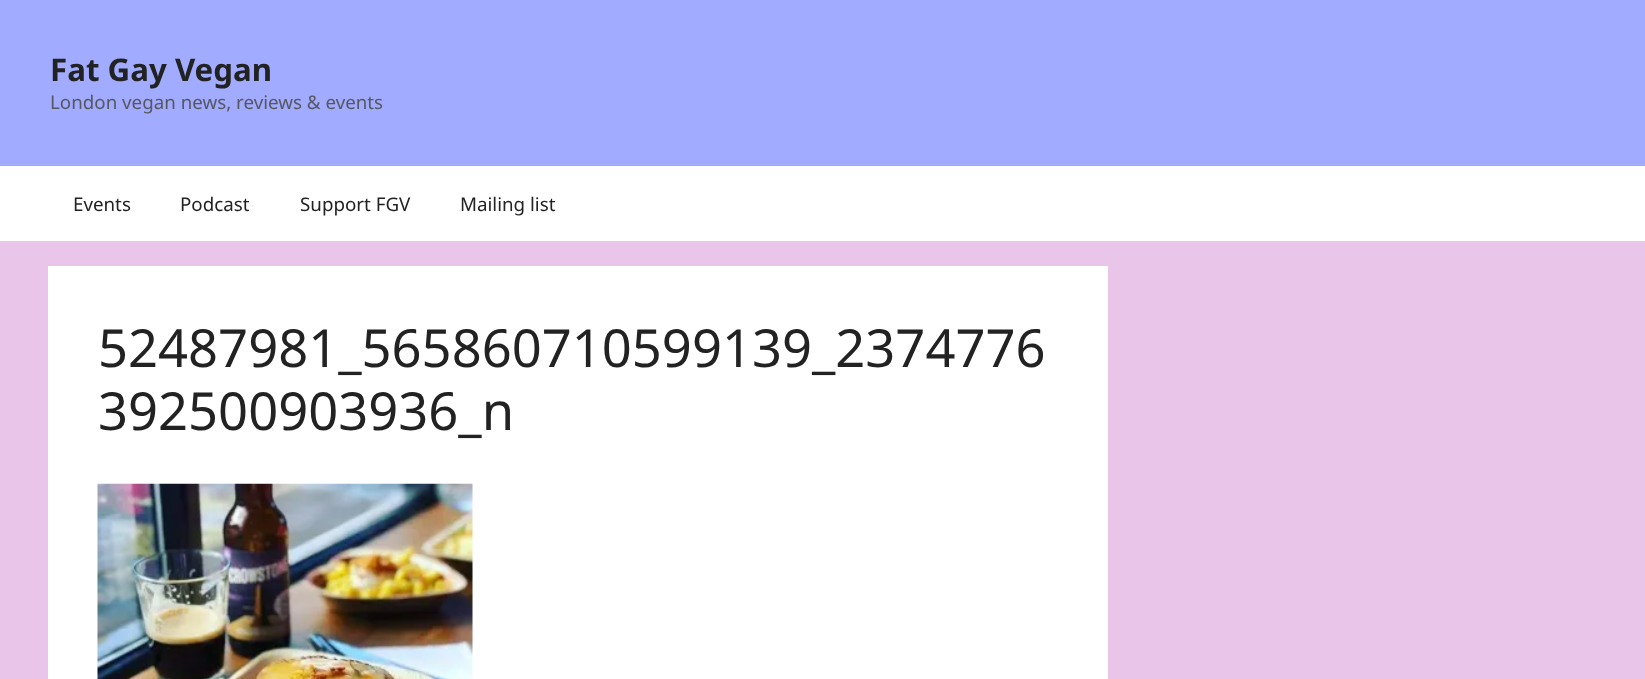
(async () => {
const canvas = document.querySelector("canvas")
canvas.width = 1645
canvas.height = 679
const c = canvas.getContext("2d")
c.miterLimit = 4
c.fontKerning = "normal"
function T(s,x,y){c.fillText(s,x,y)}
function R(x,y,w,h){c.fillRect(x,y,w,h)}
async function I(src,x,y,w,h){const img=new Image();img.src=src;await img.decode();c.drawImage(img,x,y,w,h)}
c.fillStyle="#eac5ea"
R(0,0,1645,679)
c.fillStyle="#a1abff"
R(0,0,1645,166)
c.font="bold 31.25px Noto Sans"
c.fillStyle="#222"
T("Fat Gay Vegan",50,81)
c.font="18.75px Noto Sans"
c.fillStyle="#575760"
T("London vegan news, reviews & events",50,109)
c.fillStyle="#fff"
R(0,166,1645,75)
c.fillStyle="#222"
T("Events",73,211)
T("Podcast",180,211)
T("Support FGV",300,211)
T("Mailing list",460,211)
c.fillStyle="#fff"
R(48,266,1060,413)
c.font="52.5px Noto Sans"
c.fillStyle="#222"
T("52487981_565860710599139_2374776",98,367)
T("392500903936_n",98,430)
await I("1.png",97,483,376,196)
})()
